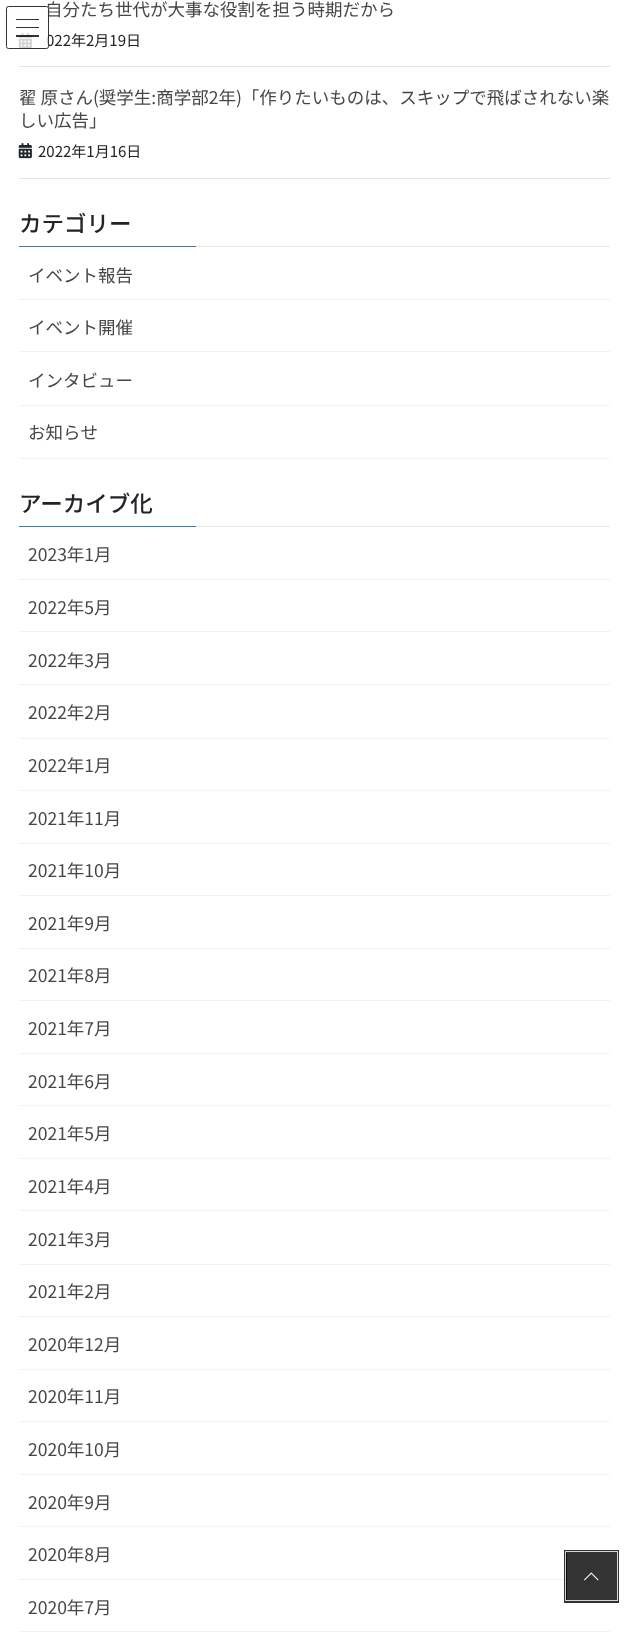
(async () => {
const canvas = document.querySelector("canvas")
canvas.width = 628
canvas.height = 1650
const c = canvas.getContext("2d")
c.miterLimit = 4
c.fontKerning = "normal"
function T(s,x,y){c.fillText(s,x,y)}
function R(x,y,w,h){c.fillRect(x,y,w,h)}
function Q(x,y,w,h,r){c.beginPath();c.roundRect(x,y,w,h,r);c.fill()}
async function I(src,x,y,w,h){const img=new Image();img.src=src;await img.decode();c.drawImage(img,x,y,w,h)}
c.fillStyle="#fff"
R(0,0,628,1650)
c.fillStyle="#e5e5e5"
R(19,66,591,1)
c.font="17.5px Noto Sans JP"
c.fillStyle="#464646"
T("自分たち世代が大事な役割を担う時期だから",45,16)
await I("1.png",18,33,14,15)
c.font="15px Noto Sans JP"
c.fillStyle="#212529"
T("022年2月19日",46,46)
c.fillStyle="#e5e5e5"
R(19,178,591,1)
c.font="17.5px Noto Sans JP"
c.fillStyle="#464646"
T("翟 原さん(奨学生:商学部2年)「作りたいものは、スキップで飛ばされない楽",19,104)
T("しい広告」",19,127)
await I("2.png",18,143,14,16)
c.font="15px Noto Sans JP"
c.fillStyle="#212529"
T("2022年1月16日",38,157)
c.fillStyle="#e6e6e6"
R(196,246,414,1)
c.font="500 22.5px Noto Sans JP"
c.fillStyle="#212529"
T("カテゴリー",19,232)
c.fillStyle="#337ab7"
R(19,246,177,1)
c.fillStyle="#f2f2f2"
R(19,299,591,1)
c.font="17.5px Noto Sans JP"
c.fillStyle="#464646"
T("イベント報告",28,282)
c.fillStyle="#f2f2f2"
R(19,351,591,1)
c.fillStyle="#464646"
T("イベント開催",28,334)
c.fillStyle="#f2f2f2"
R(19,405,591,1)
c.fillStyle="#464646"
T("インタビュー",28,387)
c.fillStyle="#f2f2f2"
R(19,458,591,1)
c.fillStyle="#464646"
T("お知らせ",28,439)
c.fillStyle="#e6e6e6"
R(196,526,414,1)
c.font="500 22.5px Noto Sans JP"
c.fillStyle="#212529"
T("アーカイブ化",19,512)
c.fillStyle="#337ab7"
R(19,526,177,1)
c.fillStyle="#f2f2f2"
R(19,579,591,1)
c.font="17.5px Noto Sans JP"
c.fillStyle="#464646"
T("2023年1月",28,561)
c.fillStyle="#f2f2f2"
R(19,631,591,1)
c.fillStyle="#464646"
T("2022年5月",28,614)
c.fillStyle="#f2f2f2"
R(19,684,591,1)
c.fillStyle="#464646"
T("2022年3月",28,667)
c.fillStyle="#f2f2f2"
R(19,738,591,1)
c.fillStyle="#464646"
T("2022年2月",28,719)
c.fillStyle="#f2f2f2"
R(19,790,591,1)
c.fillStyle="#464646"
T("2022年1月",28,772)
c.fillStyle="#f2f2f2"
R(19,843,591,1)
c.fillStyle="#464646"
T("2021年11月",28,825)
c.fillStyle="#f2f2f2"
R(19,895,591,1)
c.fillStyle="#464646"
T("2021年10月",28,877)
c.fillStyle="#f2f2f2"
R(19,948,591,1)
c.fillStyle="#464646"
T("2021年9月",28,930)
c.fillStyle="#f2f2f2"
R(19,1000,591,1)
c.fillStyle="#464646"
T("2021年8月",28,982)
c.fillStyle="#f2f2f2"
R(19,1053,591,1)
c.fillStyle="#464646"
T("2021年7月",28,1035)
c.fillStyle="#f2f2f2"
R(19,1105,591,1)
c.fillStyle="#464646"
T("2021年6月",28,1088)
c.fillStyle="#f2f2f2"
R(19,1158,591,1)
c.fillStyle="#464646"
T("2021年5月",28,1140)
c.fillStyle="#f2f2f2"
R(19,1210,591,1)
c.fillStyle="#464646"
T("2021年4月",28,1193)
c.fillStyle="#f2f2f2"
R(19,1264,591,1)
c.fillStyle="#464646"
T("2021年3月",28,1246)
c.fillStyle="#f2f2f2"
R(19,1316,591,1)
c.fillStyle="#464646"
T("2021年2月",28,1298)
c.fillStyle="#f2f2f2"
R(19,1369,591,1)
c.fillStyle="#464646"
T("2020年12月",28,1351)
c.fillStyle="#f2f2f2"
R(19,1421,591,1)
c.fillStyle="#464646"
T("2020年11月",28,1403)
c.fillStyle="#f2f2f2"
R(19,1474,591,1)
c.fillStyle="#464646"
T("2020年10月",28,1456)
c.fillStyle="#f2f2f2"
R(19,1526,591,1)
c.fillStyle="#464646"
T("2020年9月",28,1509)
c.fillStyle="#f2f2f2"
R(19,1579,591,1)
c.fillStyle="#464646"
T("2020年8月",28,1561)
c.fillStyle="#f2f2f2"
R(19,1631,591,1)
c.fillStyle="#464646"
T("2020年7月",28,1614)
c.fillStyle="#ffffffcc"
Q(6,6,43,43,2.5)
c.fillStyle="#333"
R(16,19,23,1)
R(16,27,23,1)
c.fillStyle="#000000cc"
R(16,35,23,2)
c.beginPath()
c.roundRect(6.5,6.5,42,42,2)
c.strokeStyle="#333"
c.stroke()
c.strokeStyle="#000000cc"
c.lineWidth=3
c.strokeRect(565.5,1551.5,52,50)
c.strokeStyle="#ffffffcc"
c.lineWidth=1
c.strokeRect(565.5,1551.5,52,49)
R(566,1553,50,47)
await I("3.png",584,1572,15,9)
})()
